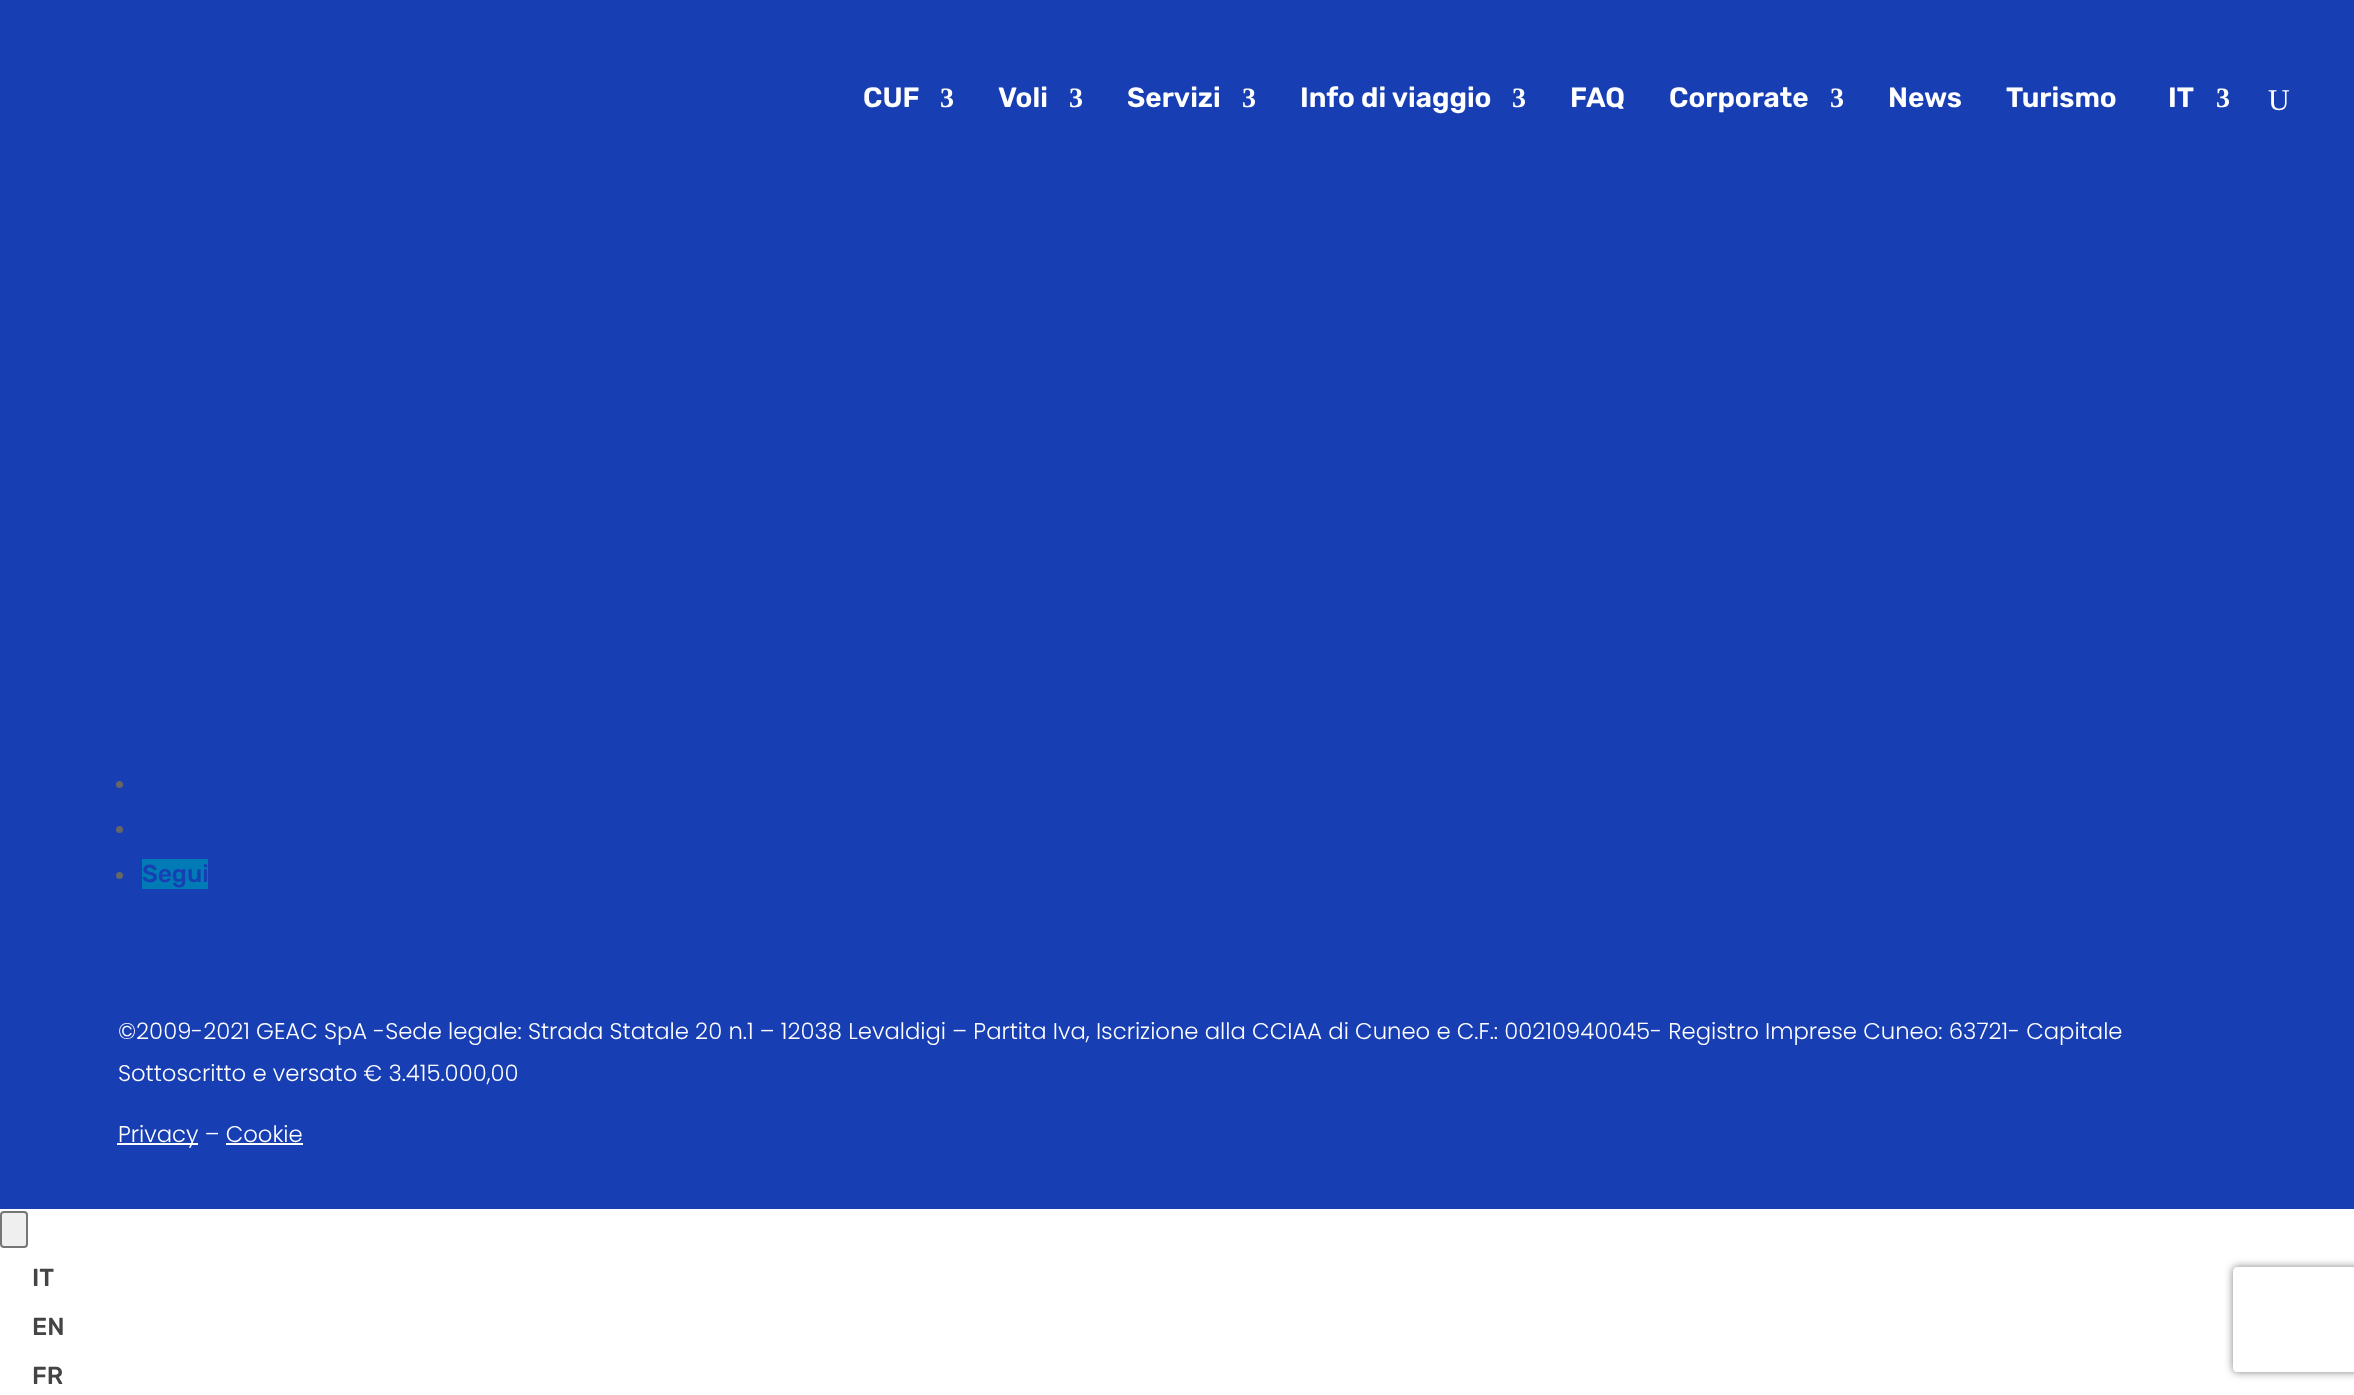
(async () => {
const canvas = document.querySelector("canvas")
canvas.width = 2354
canvas.height = 1395
const c = canvas.getContext("2d")
c.miterLimit = 4
c.fontKerning = "normal"
function T(s,x,y){c.fillText(s,x,y)}
function R(x,y,w,h){c.fillRect(x,y,w,h)}
let path
c.fillStyle="#fff"
R(0,0,2354,1395)
c.fillStyle="#173eb2"
R(0,0,2354,1209)
c.font="600 28px Rubik"
c.fillStyle="#fff"
T("CUF",863,107)
c.font="bold 28px Liberation Serif"
T("3",940,107)
c.font="600 28px Rubik"
T("Voli",998,107)
c.font="bold 28px Liberation Serif"
T("3",1069,107)
c.font="600 28px Rubik"
T("Servizi",1127,107)
c.font="bold 28px Liberation Serif"
T("3",1242,107)
c.font="600 28px Rubik"
T("Info di viaggio",1300,107)
c.font="bold 28px Liberation Serif"
T("3",1512,107)
c.font="600 28px Rubik"
T("FAQ",1570,107)
T("Corporate",1669,107)
c.font="bold 28px Liberation Serif"
T("3",1830,107)
c.font="600 28px Rubik"
T("News",1888,107)
T("Turismo",2006,107)
T("IT",2168,107)
c.font="bold 28px Liberation Serif"
T("3",2216,107)
c.font="30px Liberation Serif"
T("U",2268,110)
c.fillStyle="#666"
c.beginPath()
c.arc(119.5,784.5,3.5,0,7)
c.fill()
c.beginPath()
c.arc(119.5,829.5,3.5,0,7)
c.fill()
c.beginPath()
c.arc(119.5,875.5,3.5,0,7)
c.fill()
c.fillStyle="#007bb6"
R(142,859,66,30)
c.font="300 24.5px Rubik"
c.fillStyle="#173eb2"
T("Segui",142,882)
c.font="300 22.75px Poppins"
c.fillStyle="#fff"
T("©2009-2021 GEAC SpA -Sede legale: Strada Statale 20 n.1 – 12038 Levaldigi – Partita Iva, Iscrizione alla CCIAA di Cuneo e C.F.: 00210940045- Registro Imprese Cuneo: 63721- Capitale",118,1039)
T("Sottoscritto e versato € 3.415.000,00",118,1081)
R(117,1143,81,2)
T("Privacy – Cookie",118,1142)
R(226,1143,77,2)
c.fillStyle="#efefef"
c.beginPath()
c.roundRect(1,1212,26,35,3)
c.fill()
c.strokeStyle="#767676"
c.lineWidth=2
c.stroke()
c.font="300 24.5px Rubik"
c.fillStyle="#444"
T("IT",32,1286)
T("EN",32,1335)
T("FR",32,1384)
c.save()
path = new Path2D("M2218 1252h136v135h-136zm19 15h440c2 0 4 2 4 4v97c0 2-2 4-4 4h-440c-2 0-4-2-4-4v-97c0-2 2-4 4-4z")
c.clip(path,"evenodd")
c.fillStyle="#808080"
c.filter="blur(4.5px)"
c.beginPath()
c.roundRect(2233,1267,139,105,4)
c.fill()
c.filter="none"
c.restore()
})()
